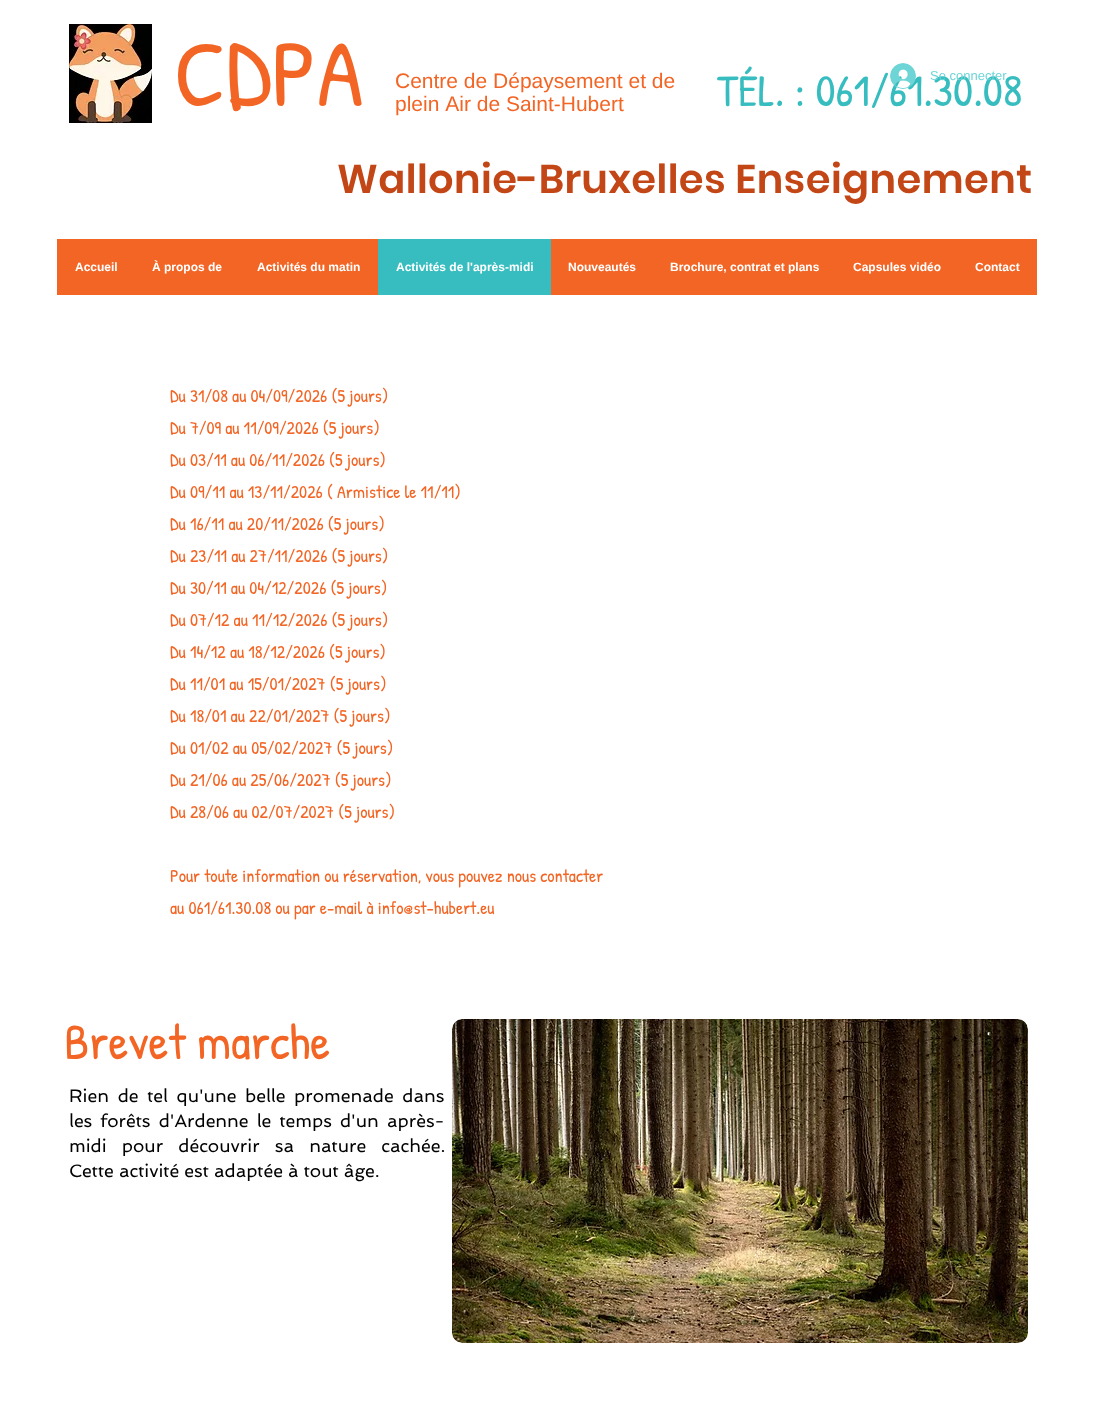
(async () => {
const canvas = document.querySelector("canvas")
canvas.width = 1096
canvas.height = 1418
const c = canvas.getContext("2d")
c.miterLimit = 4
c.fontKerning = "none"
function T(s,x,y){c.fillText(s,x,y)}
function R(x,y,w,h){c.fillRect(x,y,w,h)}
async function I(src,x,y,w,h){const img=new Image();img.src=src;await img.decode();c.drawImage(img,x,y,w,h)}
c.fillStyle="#fff"
R(0,0,1096,1418)
await I("1.png",69,24,83,99)
c.font="95px Patrick Hand"
c.fillStyle="#f26524"
T("CDPA",174,106)
c.font="45px Patrick Hand"
c.fillStyle="#37bdbf"
T("TÉL. : 061/61.30.08",717,106)
c.font="21px Liberation Sans"
c.fillStyle="#f26524"
T("Centre de Dépaysement et de",395,88)
T("plein Air de Saint-Hubert",395,111)
await I("2.png",890,63,26,26)
c.font="13px Liberation Sans"
c.fillStyle="#6ed5d7"
T("Se connecter",930,80)
c.letterSpacing="0.4px"
c.font="600 40px Poppins"
c.fillStyle="#c34716"
T("Wallonie-Bruxelles Enseignement",337,193)
c.fillStyle="#f26524"
R(57,239,321,56)
c.letterSpacing="0px"
c.font="bold 12px Liberation Sans"
c.fillStyle="#fff"
T("Accueil",75,271)
T("À propos de",152,271)
T("Activités du matin",257,271)
c.fillStyle="#37bdbf"
R(378,239,173,56)
c.fillStyle="#fff"
T("Activités de l'après-midi",396,271)
c.fillStyle="#f26524"
R(551,239,486,56)
c.fillStyle="#fff"
T("Nouveautés",568,271)
T("Brochure, contrat et plans",670,271)
T("Capsules vidéo",853,271)
T("Contact",975,271)
c.font="18px Patrick Hand"
c.fillStyle="#f26524"
T("Du 31/08 au 04/09/2026 (5 jours)",170,402)
T("Du 7/09 au 11/09/2026 (5 jours)",170,434)
T("Du 03/11 au 06/11/2026 (5 jours)",170,466)
T("Du 09/11 au 13/11/2026 ( Armistice le 11/11)",170,498)
T("Du 16/11 au 20/11/2026 (5 jours)",170,530)
T("Du 23/11 au 27/11/2026 (5 jours)",170,562)
T("Du 30/11 au 04/12/2026 (5 jours)",170,594)
T("Du 07/12 au 11/12/2026 (5 jours)",170,626)
T("Du 14/12 au 18/12/2026 (5 jours)",170,658)
T("Du 11/01 au 15/01/2027 (5 jours)",170,690)
T("Du 18/01 au 22/01/2027 (5 jours)",170,722)
T("Du 01/02 au 05/02/2027 (5 jours)",170,754)
T("Du 21/06 au 25/06/2027 (5 jours)",170,786)
T("Du 28/06 au 02/07/2027 (5 jours)",170,818)
T("Pour toute information ou réservation, vous pouvez nous contacter",170,882)
T("au 061/61.30.08 ou par e-mail à info@st-hubert.eu",170,914)
c.font="50px Patrick Hand"
T("Brevet marche",64,1059)
await I("3.png",452,1019,576,324)
c.wordSpacing="3.5px"
c.font="18px Spinnaker"
c.fillStyle="#000"
T("Rien de tel qu'une belle promenade dans",69,1102)
c.wordSpacing="3px"
T("les forêts d'Ardenne le temps d'un après-",69,1127)
c.wordSpacing="10px"
T("midi pour découvrir sa nature cachée.",69,1152)
c.wordSpacing="0px"
T("Cette activité est adaptée à tout âge.",69,1177)
})()
